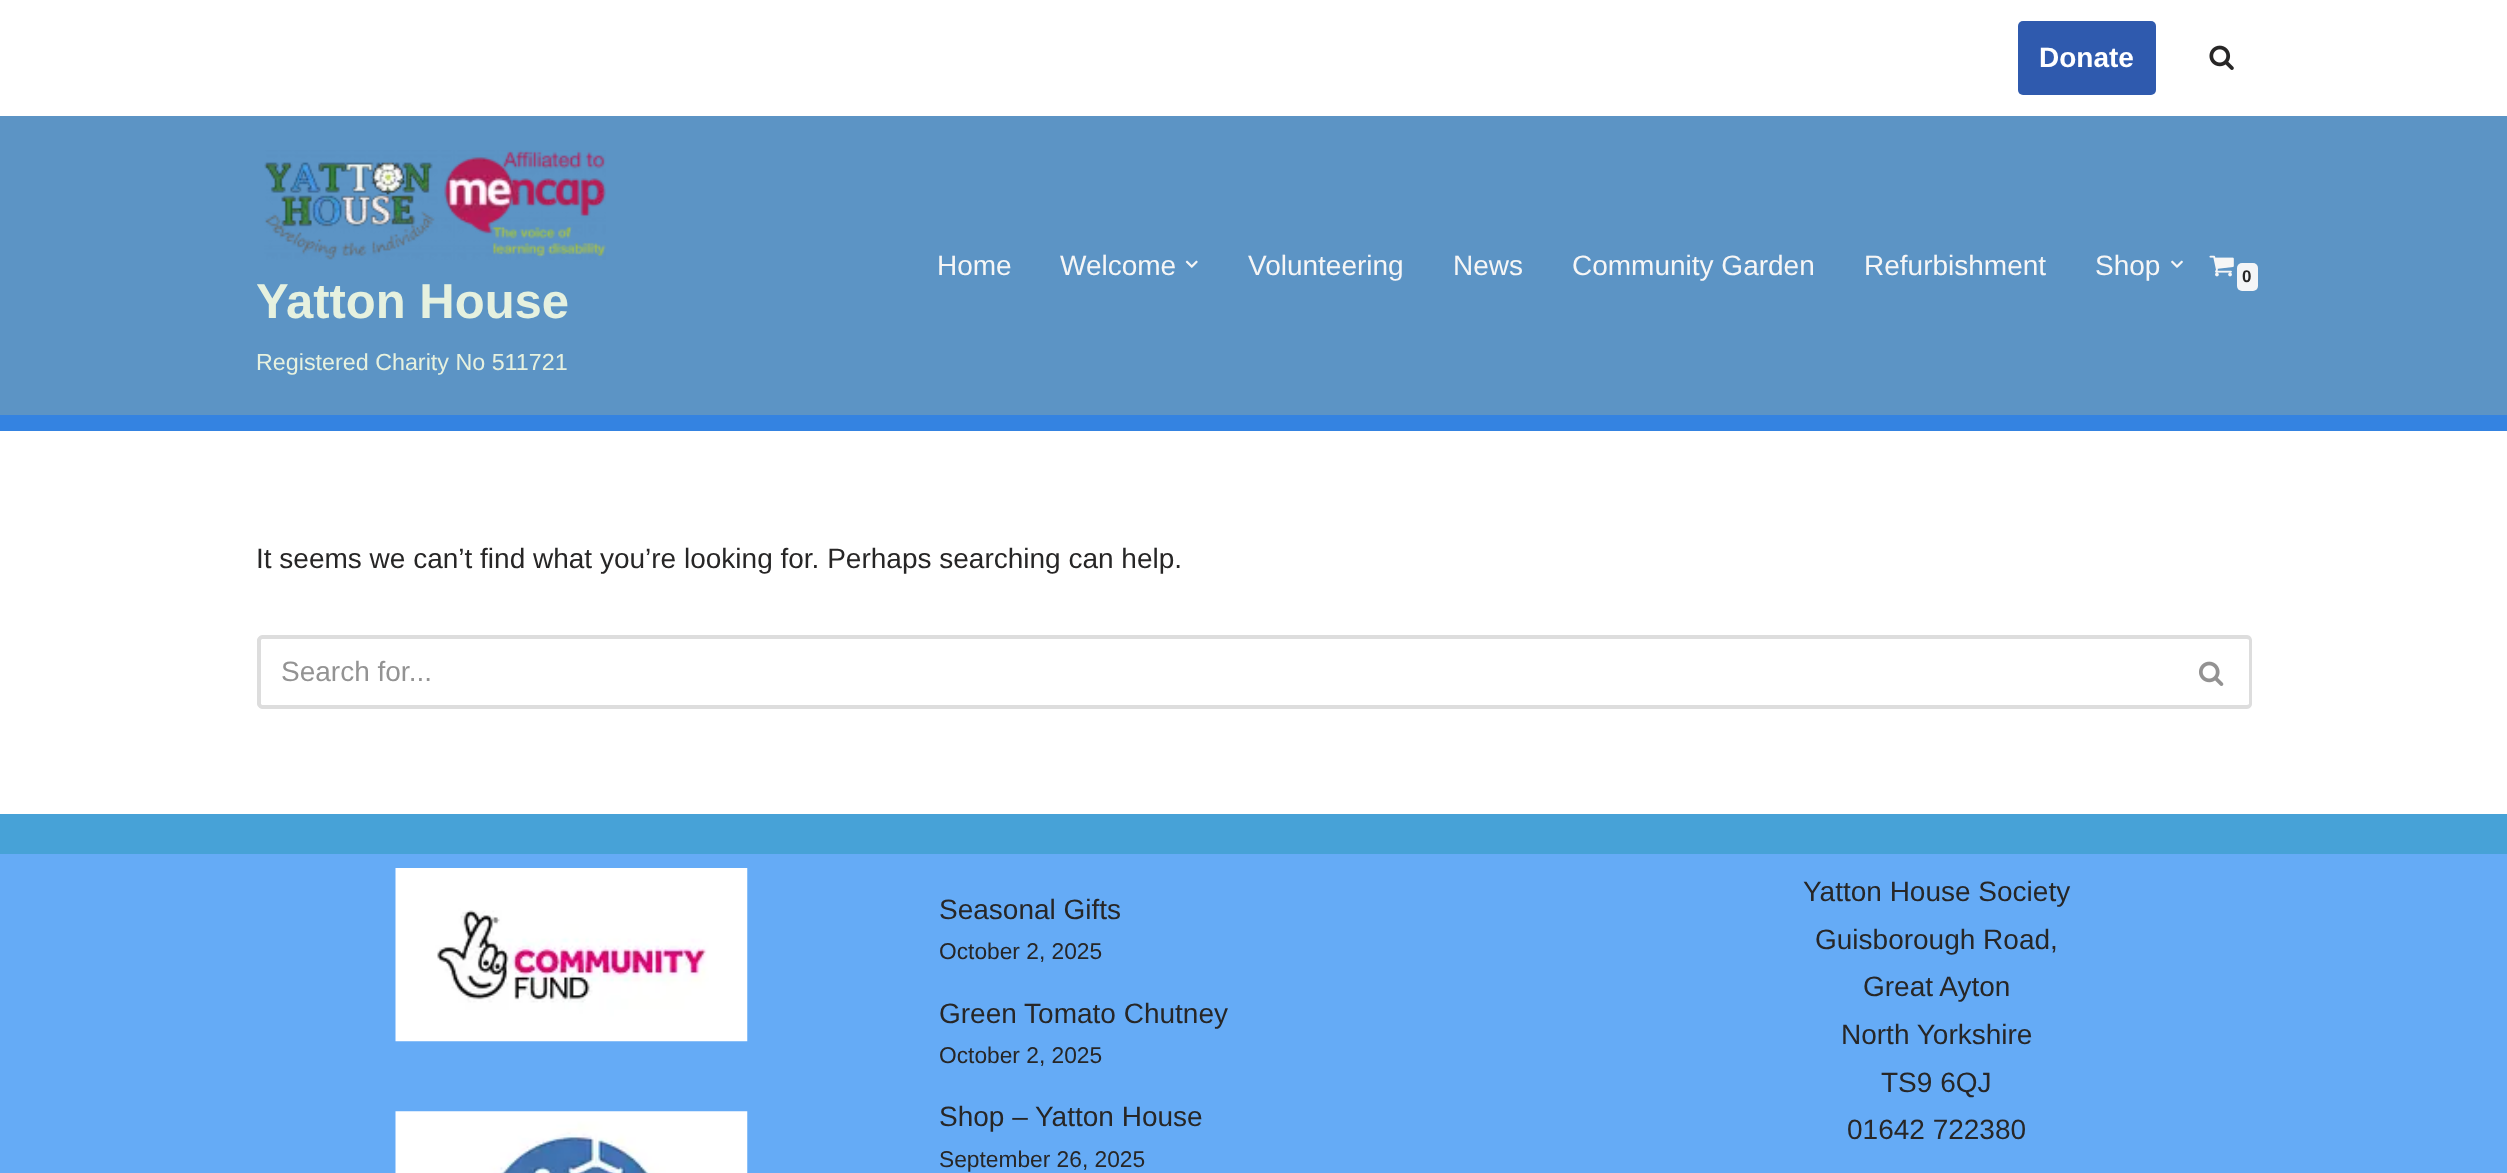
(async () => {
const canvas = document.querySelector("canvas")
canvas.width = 2507
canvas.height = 1173
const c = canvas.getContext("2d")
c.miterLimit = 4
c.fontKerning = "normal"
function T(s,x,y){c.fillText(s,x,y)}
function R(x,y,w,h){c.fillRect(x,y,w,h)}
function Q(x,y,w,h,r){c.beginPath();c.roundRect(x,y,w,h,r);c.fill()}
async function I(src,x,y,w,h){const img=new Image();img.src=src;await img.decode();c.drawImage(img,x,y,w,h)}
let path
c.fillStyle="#fff"
R(0,0,2507,1173)
c.fillStyle="#2f5aae"
Q(2018,21,138,74,5)
c.font="bold 28px Liberation Sans"
c.fillStyle="#fff"
T("Donate",2039,67)
await I("1.png",2209,45,25,25)
c.fillStyle="#5c94c5"
R(0,116,2507,299)
c.fillStyle="#3483e1"
R(0,415,2507,16)
c.font="28px Liberation Sans"
c.fillStyle="#f6f6f6"
T("Home",937,275)
T("Welcome",1060,275)
await I("2.png",1185,260,13,8)
T("Volunteering",1248,275)
T("News",1453,275)
T("Community Garden",1572,275)
T("Refurbishment",1864,275)
T("Shop",2095,275)
await I("3.png",2171,260,12,8)
await I("4.png",2209,255,25,22)
c.fillStyle="#f4f5f7"
Q(2237,263,21,28,5)
c.font="bold 17px Liberation Sans"
c.fillStyle="#272626"
T("0",2242,282)
await I("5.png",264,150,342,110)
c.font="bold 49px Liberation Sans"
c.fillStyle="#e6f1df"
T("Yatton House",256,318)
c.font="23.3px Liberation Sans"
T("Registered Charity No 511721",256,370)
c.font="28px Liberation Sans"
c.fillStyle="#272626"
T("It seems we can’t find what you’re looking for. Perhaps searching can help.",256,568)
c.fillStyle="#ddd"
path = new Path2D("M262 635h1912v74h-1912c-2 0-5-3-5-5v-64c0-2 3-5 5-5zm0 4h1912v66h-1912c0 0-1-1-1-1v-64c0 0 1-1 1-1z")
c.fill(path,"evenodd")
c.fillStyle="#939393"
T("Search for...",281,681)
c.fillStyle="#ddd"
path = new Path2D("M2174 635h73c3 0 5 3 5 5v64c0 2-2 5-5 5h-73zm0 4h73c1 0 2 1 2 1v64c0 0-1 1-2 1h-73z")
c.fill(path,"evenodd")
await I("6.png",2199,661,25,25)
c.fillStyle="#65abf6"
R(0,854,2507,319)
c.fillStyle="#47a2d7"
R(0,814,2507,40)
await I("7.png",395,868,353,174)
await I("8.png",395,1111,353,62)
c.fillStyle="#272626"
T("Seasonal Gifts",939,919)
c.font="22.75px Liberation Sans"
T("October 2, 2025",939,959)
c.font="28px Liberation Sans"
T("Green Tomato Chutney",939,1023)
c.font="22.75px Liberation Sans"
T("October 2, 2025",939,1063)
c.font="28px Liberation Sans"
T("Shop – Yatton House",939,1126)
c.font="22.75px Liberation Sans"
T("September 26, 2025",939,1167)
c.font="28px Liberation Sans"
T("Yatton House Society",1803,901)
T("Guisborough Road,",1815,949)
T("Great Ayton",1863,996)
T("North Yorkshire",1841,1044)
T("TS9 6QJ",1881,1092)
T("01642 722380",1847,1139)
})()
